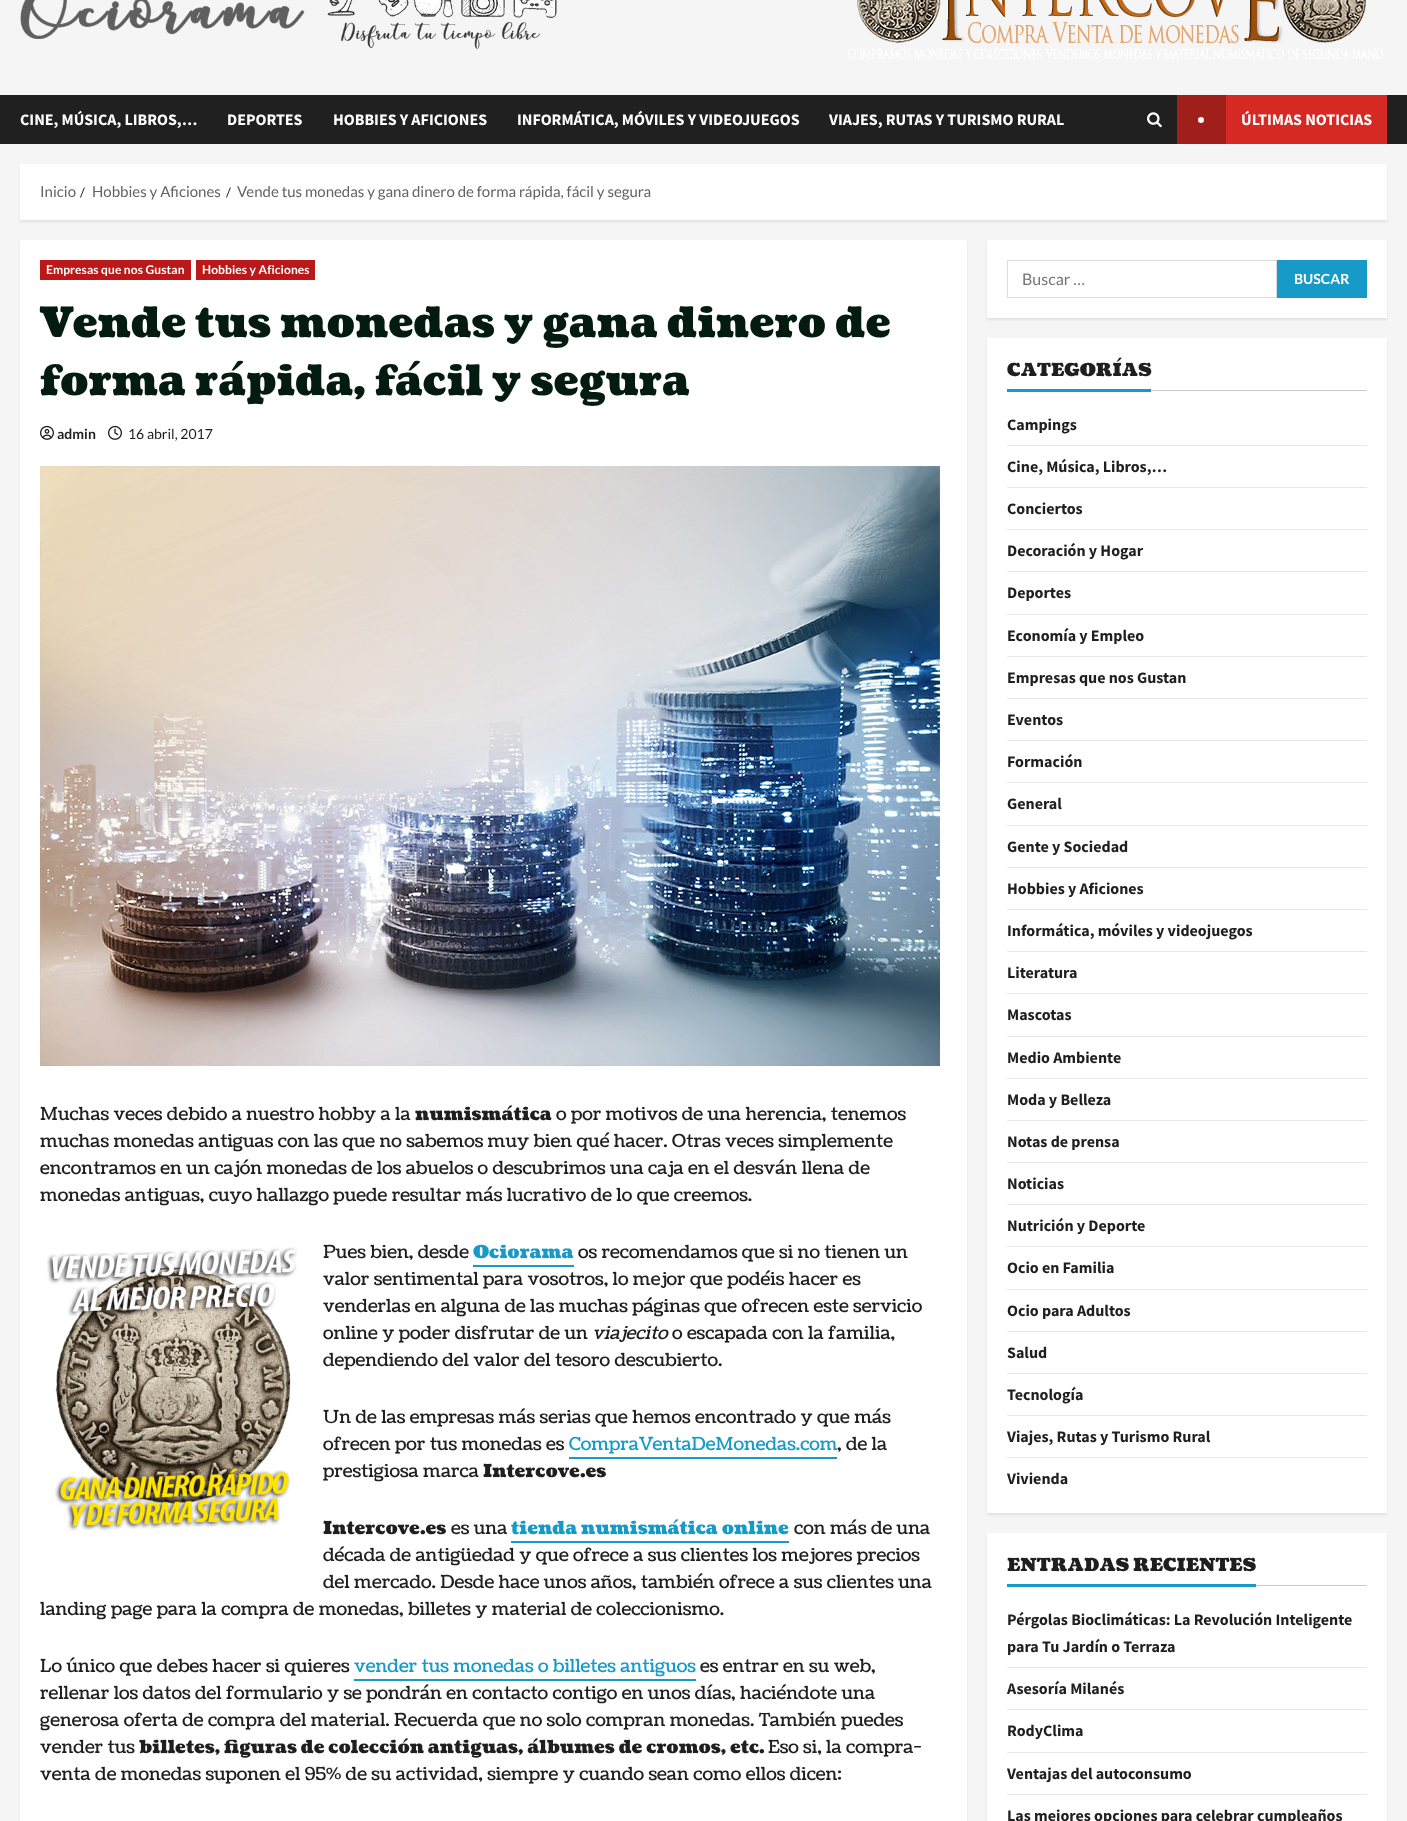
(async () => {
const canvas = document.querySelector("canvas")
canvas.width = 1407
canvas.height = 1821
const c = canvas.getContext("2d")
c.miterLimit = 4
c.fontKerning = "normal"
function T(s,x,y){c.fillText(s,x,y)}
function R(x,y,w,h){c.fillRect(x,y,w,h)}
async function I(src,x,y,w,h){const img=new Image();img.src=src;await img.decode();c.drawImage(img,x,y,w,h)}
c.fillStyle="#f5f5f5"
R(0,0,1407,1821)
await I("1.png",20,0,537,49)
await I("2.png",848,0,535,60)
c.fillStyle="#202020"
R(0,95,1407,49)
c.font="bold 16px Source Sans Pro"
c.fillStyle="#fff"
T("CINE, MÚSICA, LIBROS,…",20,125)
T("DEPORTES",227,125)
T("HOBBIES Y AFICIONES",333,125)
T("INFORMÁTICA, MÓVILES Y VIDEOJUEGOS",517,125)
T("VIAJES, RUTAS Y TURISMO RURAL",829,125)
await I("3.png",1147,112,15,16)
c.fillStyle="#d72924"
R(1226,95,161,49)
c.fillStyle="#a11f1b"
R(1177,95,49,49)
c.fillStyle="#fff"
c.beginPath()
c.arc(1201,120,3,0,7)
c.fill()
T("ÚLTIMAS NOTICIAS",1241,125)
c.fillStyle="#00000014"
c.filter="blur(1px)"
c.beginPath()
c.rect(20,166,1367,56)
c.fill()
c.filter="none"
c.fillStyle="#fff"
R(20,164,1367,56)
c.font="15px Lato"
c.fillStyle="#626262"
T("Inicio",40,197)
c.font="13px Lato"
c.fillStyle="#1f1f1f"
T("/",80,197)
c.font="15px Lato"
c.fillStyle="#626262"
T("Hobbies y Aficiones",92,197)
c.font="13px Lato"
c.fillStyle="#1f1f1f"
T("/",226,197)
c.font="15px Lato"
c.fillStyle="#626262"
T("Vende tus monedas y gana dinero de forma rápida, fácil y segura",237,197)
c.fillStyle="#00000014"
c.filter="blur(1px)"
c.beginPath()
c.rect(20,242,947,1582)
c.fill()
c.filter="none"
c.fillStyle="#fff"
R(20,240,947,1581)
c.fillStyle="#bb1919"
R(40,260,151,20)
c.letterSpacing="0.1px"
c.font="bold 12px Lato"
c.fillStyle="#fff"
T("Empresas que nos Gustan",46,274)
c.fillStyle="#bb1919"
R(196,260,119,20)
c.fillStyle="#fff"
T("Hobbies y Aficiones",202,274)
c.letterSpacing="0px"
c.font="900 42px Coustard"
c.fillStyle="#031b11"
T("Vende tus monedas y gana dinero de",40,337)
T("forma rápida, fácil y segura",40,395)
await I("4.png",40,425,14,15)
c.font="bold 14px Lato"
c.fillStyle="#1f1f1f"
T("admin",57,439)
await I("5.png",108,425,14,15)
c.font="14px Lato"
T("16 abril, 2017",128,439)
await I("6.png",40,466,900,600)
c.font="18px Coustard"
T("Muchas veces debido a nuestro hobby a la",40,1120)
c.font="900 18px Coustard"
T("numismática",415,1120)
c.font="18px Coustard"
T("o por motivos de una herencia, tenemos",556,1120)
T("muchas monedas antiguas con las que no sabemos muy bien qué hacer. Otras veces simplemente",40,1147)
T("encontramos en un cajón monedas de los abuelos o descubrimos una caja en el desván llena de",40,1174)
T("monedas antiguas, cuyo hallazgo puede resultar más lucrativo de lo que creemos.",40,1201)
await I("7.png",47,1247,250,284)
T("Pues bien, desde",323,1258)
c.font="900 18px Coustard"
c.fillStyle="#189ac9"
T("Ociorama",473,1258)
R(473,1265,101,2)
c.font="18px Coustard"
c.fillStyle="#1f1f1f"
T("os recomendamos que si no tienen un",578,1258)
T("valor sentimental para vosotros, lo mejor que podéis hacer es",323,1285)
T("venderlas en alguna de las muchas páginas que ofrecen este servicio",323,1312)
T("online y poder disfrutar de un",323,1339)
c.font="italic 18px Coustard"
T("viajecito",592,1339)
c.font="18px Coustard"
T("o escapada con la familia,",672,1339)
T("dependiendo del valor del tesoro descubierto.",323,1366)
T("Un de las empresas más serias que hemos encontrado y que más",323,1423)
T("ofrecen por tus monedas es",323,1450)
c.fillStyle="#189ac9"
T("CompraVentaDeMonedas.com",569,1450)
R(569,1457,268,2)
c.fillStyle="#1f1f1f"
T(", de la",837,1450)
T("prestigiosa marca",323,1477)
c.font="900 18px Coustard"
T("Intercove.es",483,1477)
T("Intercove.es",323,1534)
c.font="18px Coustard"
T("es una",451,1534)
c.font="900 18px Coustard"
c.fillStyle="#189ac9"
T("tienda numismática online",511,1534)
R(511,1541,278,2)
c.font="18px Coustard"
c.fillStyle="#1f1f1f"
T("con más de una",794,1534)
T("década de antigüedad y que ofrece a sus clientes los mejores precios",323,1561)
T("del mercado. Desde hace unos años, también ofrece a sus clientes una",323,1588)
T("landing page para la compra de monedas, billetes y material de coleccionismo.",40,1615)
T("Lo único que debes hacer si quieres",40,1672)
c.fillStyle="#189ac9"
T("vender tus monedas o billetes antiguos",354,1672)
R(354,1679,342,2)
c.fillStyle="#1f1f1f"
T("es entrar en su web,",700,1672)
T("rellenar los datos del formulario y se pondrán en contacto contigo en unos días, haciéndote una",40,1699)
T("generosa oferta de compra del material. Recuerda que no solo compran monedas. También puedes",40,1726)
T("vender tus",40,1753)
c.font="900 18px Coustard"
T("billetes, figuras de colección antiguas, álbumes de cromos, etc.",139,1753)
c.font="18px Coustard"
T("Eso si, la compra-",768,1753)
T("venta de monedas suponen el 95% de su actividad, siempre y cuando sean como ellos dicen:",40,1780)
c.fillStyle="#00000014"
c.filter="blur(1px)"
c.beginPath()
c.rect(987,242,400,78)
c.fill()
c.filter="none"
c.fillStyle="#fff"
R(987,240,400,78)
c.strokeStyle="#dcdcdc"
c.strokeRect(1007.5,260.5,269,37)
c.font="16px Lato"
c.fillStyle="#757575"
T("Buscar …",1022,285)
c.fillStyle="#189ac9"
R(1277,260,90,38)
c.font="bold 14px Lato"
c.fillStyle="#fff"
T("BUSCAR",1294,284)
c.fillStyle="#00000014"
c.filter="blur(1px)"
c.beginPath()
c.rect(987,340,400,1175)
c.fill()
c.filter="none"
c.fillStyle="#fff"
R(987,338,400,1175)
c.fillStyle="#ccc"
R(1151,390,216,1)
c.font="900 18px Coustard"
c.fillStyle="#1f1f1f"
T("CATEGORÍAS",1007,376)
c.fillStyle="#189ac9"
R(1007,389,144,3)
c.fillStyle="#e6e6e6"
R(1007,445,360,1)
c.font="bold 16px Source Sans Pro"
c.fillStyle="#1f1f1f"
T("Campings",1007,430)
c.fillStyle="#e6e6e6"
R(1007,487,360,1)
c.fillStyle="#1f1f1f"
T("Cine, Música, Libros,…",1007,472)
c.fillStyle="#e6e6e6"
R(1007,529,360,1)
c.fillStyle="#1f1f1f"
T("Conciertos",1007,514)
c.fillStyle="#e6e6e6"
R(1007,571,360,1)
c.fillStyle="#1f1f1f"
T("Decoración y Hogar",1007,556)
c.fillStyle="#e6e6e6"
R(1007,614,360,1)
c.fillStyle="#1f1f1f"
T("Deportes",1007,598)
c.fillStyle="#e6e6e6"
R(1007,656,360,1)
c.fillStyle="#1f1f1f"
T("Economía y Empleo",1007,641)
c.fillStyle="#e6e6e6"
R(1007,698,360,1)
c.fillStyle="#1f1f1f"
T("Empresas que nos Gustan",1007,683)
c.fillStyle="#e6e6e6"
R(1007,740,360,1)
c.fillStyle="#1f1f1f"
T("Eventos",1007,725)
c.fillStyle="#e6e6e6"
R(1007,782,360,1)
c.fillStyle="#1f1f1f"
T("Formación",1007,767)
c.fillStyle="#e6e6e6"
R(1007,825,360,1)
c.fillStyle="#1f1f1f"
T("General",1007,809)
c.fillStyle="#e6e6e6"
R(1007,867,360,1)
c.fillStyle="#1f1f1f"
T("Gente y Sociedad",1007,852)
c.fillStyle="#e6e6e6"
R(1007,909,360,1)
c.fillStyle="#1f1f1f"
T("Hobbies y Aficiones",1007,894)
c.fillStyle="#e6e6e6"
R(1007,951,360,1)
c.fillStyle="#1f1f1f"
T("Informática, móviles y videojuegos",1007,936)
c.fillStyle="#e6e6e6"
R(1007,993,360,1)
c.fillStyle="#1f1f1f"
T("Literatura",1007,978)
c.fillStyle="#e6e6e6"
R(1007,1036,360,1)
c.fillStyle="#1f1f1f"
T("Mascotas",1007,1020)
c.fillStyle="#e6e6e6"
R(1007,1078,360,1)
c.fillStyle="#1f1f1f"
T("Medio Ambiente",1007,1063)
c.fillStyle="#e6e6e6"
R(1007,1120,360,1)
c.fillStyle="#1f1f1f"
T("Moda y Belleza",1007,1105)
c.fillStyle="#e6e6e6"
R(1007,1162,360,1)
c.fillStyle="#1f1f1f"
T("Notas de prensa",1007,1147)
c.fillStyle="#e6e6e6"
R(1007,1204,360,1)
c.fillStyle="#1f1f1f"
T("Noticias",1007,1189)
c.fillStyle="#e6e6e6"
R(1007,1246,360,1)
c.fillStyle="#1f1f1f"
T("Nutrición y Deporte",1007,1231)
c.fillStyle="#e6e6e6"
R(1007,1289,360,1)
c.fillStyle="#1f1f1f"
T("Ocio en Familia",1007,1273)
c.fillStyle="#e6e6e6"
R(1007,1331,360,1)
c.fillStyle="#1f1f1f"
T("Ocio para Adultos",1007,1316)
c.fillStyle="#e6e6e6"
R(1007,1373,360,1)
c.fillStyle="#1f1f1f"
T("Salud",1007,1358)
c.fillStyle="#e6e6e6"
R(1007,1415,360,1)
c.fillStyle="#1f1f1f"
T("Tecnología",1007,1400)
c.fillStyle="#e6e6e6"
R(1007,1457,360,1)
c.fillStyle="#1f1f1f"
T("Viajes, Rutas y Turismo Rural",1007,1442)
T("Vivienda",1007,1484)
c.fillStyle="#00000014"
c.filter="blur(1px)"
c.beginPath()
c.rect(987,1535,400,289)
c.fill()
c.filter="none"
c.fillStyle="#fff"
R(987,1533,400,288)
c.fillStyle="#ccc"
R(1256,1585,111,1)
c.font="900 18px Coustard"
c.fillStyle="#1f1f1f"
T("ENTRADAS RECIENTES",1007,1571)
c.fillStyle="#189ac9"
R(1007,1584,249,3)
c.fillStyle="#e6e6e6"
R(1007,1667,360,1)
c.font="bold 16px Source Sans Pro"
c.fillStyle="#1f1f1f"
T("Pérgolas Bioclimáticas: La Revolución Inteligente",1007,1625)
T("para Tu Jardín o Terraza",1007,1652)
c.fillStyle="#e6e6e6"
R(1007,1709,360,1)
c.fillStyle="#1f1f1f"
T("Asesoría Milanés",1007,1694)
c.fillStyle="#e6e6e6"
R(1007,1752,360,1)
c.fillStyle="#1f1f1f"
T("RodyClima",1007,1736)
c.fillStyle="#e6e6e6"
R(1007,1794,360,1)
c.fillStyle="#1f1f1f"
T("Ventajas del autoconsumo",1007,1779)
T("Las mejores opciones para celebrar cumpleaños",1007,1821)
})()
